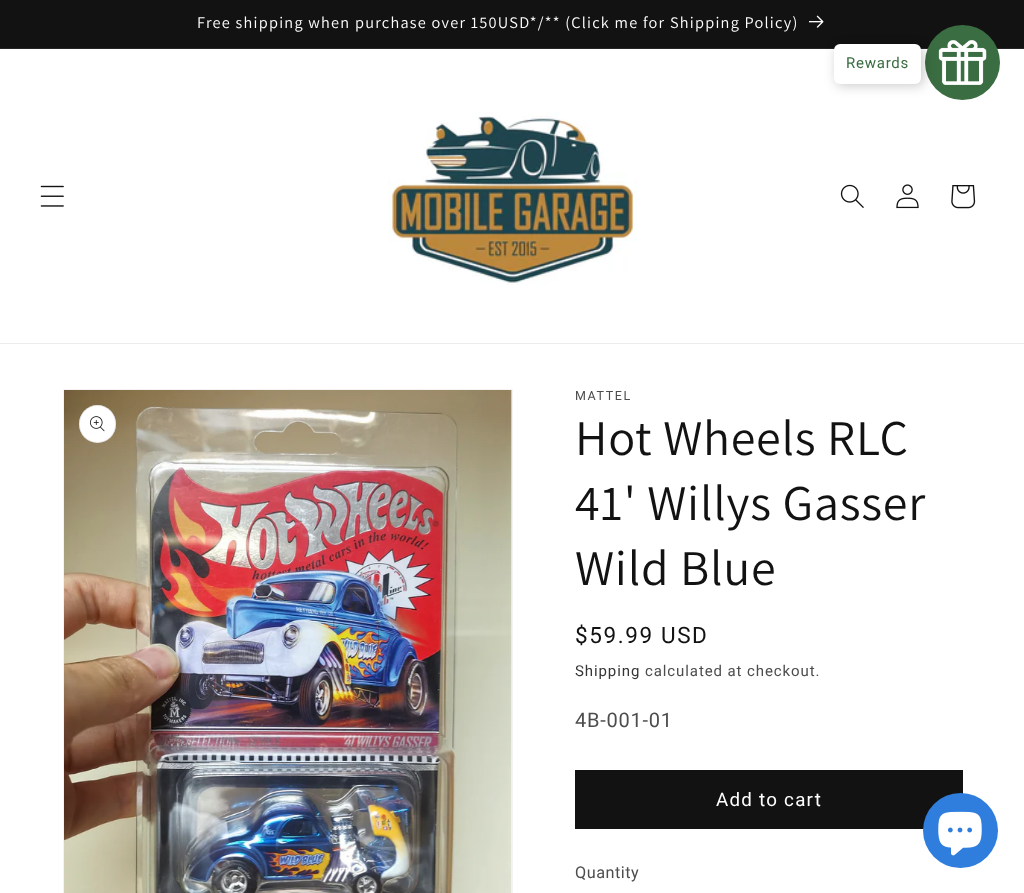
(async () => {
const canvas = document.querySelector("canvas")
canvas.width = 1024
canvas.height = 893
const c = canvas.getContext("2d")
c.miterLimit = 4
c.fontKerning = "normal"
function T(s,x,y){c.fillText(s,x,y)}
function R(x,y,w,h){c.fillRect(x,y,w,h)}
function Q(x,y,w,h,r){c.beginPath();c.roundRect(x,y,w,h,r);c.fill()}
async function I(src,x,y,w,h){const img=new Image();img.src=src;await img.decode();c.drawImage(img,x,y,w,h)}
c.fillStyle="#fff"
R(0,0,1024,893)
c.fillStyle="#121212"
R(0,0,1024,48)
c.fillStyle="#252525"
R(0,48,1024,1)
c.letterSpacing="1.25px"
c.font="16.25px Assistant"
c.fillStyle="#fff"
T("Free shipping when purchase over 150USD*/** (Click me for Shipping Policy)",197,28)
await I("1.png",809,15,15,13)
c.fillStyle="#3b6d42"
c.beginPath()
c.arc(962.5,62.5,37.5,0,7)
c.fill()
await I("2.png",938,40,49,45)
c.fillStyle="#00000033"
c.filter="blur(6px)"
c.beginPath()
c.roundRect(836,46,88,40,6)
c.fill()
c.filter="none"
c.fillStyle="#fff"
Q(834,44,87,40,6)
c.letterSpacing="0.75px"
c.font="15px Roboto"
c.fillStyle="#3b6d42"
T("Rewards",846,68)
c.fillStyle="#ececec"
R(0,343,1024,1)
await I("3.png",40,185,24,22)
await I("4.png",388,112,249,173)
await I("5.png",840,184,24,24)
await I("6.png",896,184,23,25)
await I("7.png",951,185,25,24)
c.strokeStyle="#f3f3f3"
c.strokeRect(63.5,389.5,449,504)
await I("8.png",64,390,448,503)
c.fillStyle="#fff"
Q(79,405,37,38,18.5)
c.beginPath()
c.roundRect(79.5,405.5,36,37,18)
c.strokeStyle="#1212121a"
c.stroke()
await I("9.png",90,416,15,16)
c.letterSpacing="1.6px"
c.font="12.5px Roboto"
c.fillStyle="#4d4d4d"
T("MATTEL",575,400)
c.letterSpacing="0.75px"
c.font="50px Assistant"
c.fillStyle="#121212"
T("Hot Wheels RLC",575,455)
T("41' Willys Gasser",575,520)
T("Wild Blue",575,585)
c.letterSpacing="1.6px"
c.font="22.5px Roboto"
T("$59.99 USD",575,643)
c.letterSpacing="0.9px"
c.font="15px Roboto"
c.fillStyle="#363636"
T("Shipping",575,676)
c.fillStyle="#4d4d4d"
T("calculated at checkout.",645,676)
c.letterSpacing="0.75px"
c.font="20px Roboto"
T("4B-001-01",575,727)
c.fillStyle="#121212"
R(575,770,388,59)
c.letterSpacing="1.25px"
c.font="18.75px Roboto"
c.fillStyle="#fff"
T("Add to cart",716,806)
c.letterSpacing="0.5px"
c.font="16.25px Roboto"
c.fillStyle="#4d4d4d"
T("Quantity",575,878)
c.fillStyle="#2f7ddc"
c.beginPath()
c.arc(960.5,830.5,37.5,0,7)
c.fill()
await I("10.png",938,811,44,45)
})()
